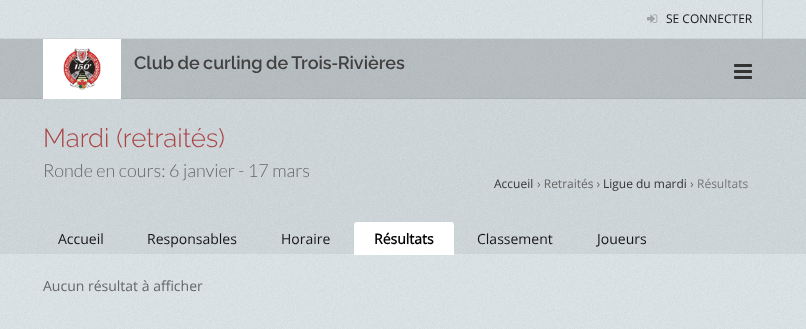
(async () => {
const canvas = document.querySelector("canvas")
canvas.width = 806
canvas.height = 329
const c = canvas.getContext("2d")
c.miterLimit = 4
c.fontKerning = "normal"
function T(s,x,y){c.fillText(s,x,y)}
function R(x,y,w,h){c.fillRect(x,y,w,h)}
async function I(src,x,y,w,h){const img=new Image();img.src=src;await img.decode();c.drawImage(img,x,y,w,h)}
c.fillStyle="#dce4e9"
R(0,0,806,329)
await I("1.png",0,39,806,290)
await I("2.png",0,0,806,39)
c.fillStyle="#0000000d"
R(0,38,806,1)
c.fillStyle="#0000001a"
R(762,0,1,38)
await I("3.png",647,14,11,9)
c.font="12px Open Sans"
c.fillStyle="#151515"
T("SE CONNECTER",666,23)
c.fillStyle="#00000029"
R(0,39,806,60)
c.fillStyle="#0000000d"
R(0,98,806,1)
await I("4.png",43,39,78,60)
c.wordSpacing="-1px"
c.font="600 18px Raleway"
c.fillStyle="#414141"
T("Club de curling de Trois‑Rivières",134,69)
await I("5.png",734,64,18,15)
c.fillStyle="#0000000d"
R(0,99,806,155)
c.wordSpacing="0px"
c.font="300 26px Raleway"
c.fillStyle="#a94545"
T("Mardi (retraités)",43,147)
c.font="300 18px Lato"
c.fillStyle="#666"
T("Ronde en cours: 6 janvier - 17 mars",43,177)
c.font="12px Open Sans"
c.fillStyle="#333"
T("Accueil",494,188)
c.fillStyle="#666"
T("› Retraités ›",537,188)
c.fillStyle="#333"
T("Ligue du mardi",603,188)
c.fillStyle="#666"
T("›",690,188)
c.fillStyle="#777"
T("Résultats",697,188)
c.font="14px Open Sans"
c.fillStyle="#151515"
T("Accueil",58,244)
T("Responsables",147,244)
T("Horaire",281,244)
c.fillStyle="#fff"
c.beginPath()
c.roundRect(354,222,100,33,[3,3,0,0])
c.fill()
c.font="bold 14px Open Sans"
c.fillStyle="#000"
T("Résultats",374,244)
c.font="14px Open Sans"
c.fillStyle="#151515"
T("Classement",477,244)
T("Joueurs",597,244)
c.fillStyle="#666"
T("Aucun résultat à afficher",43,291)
})()
